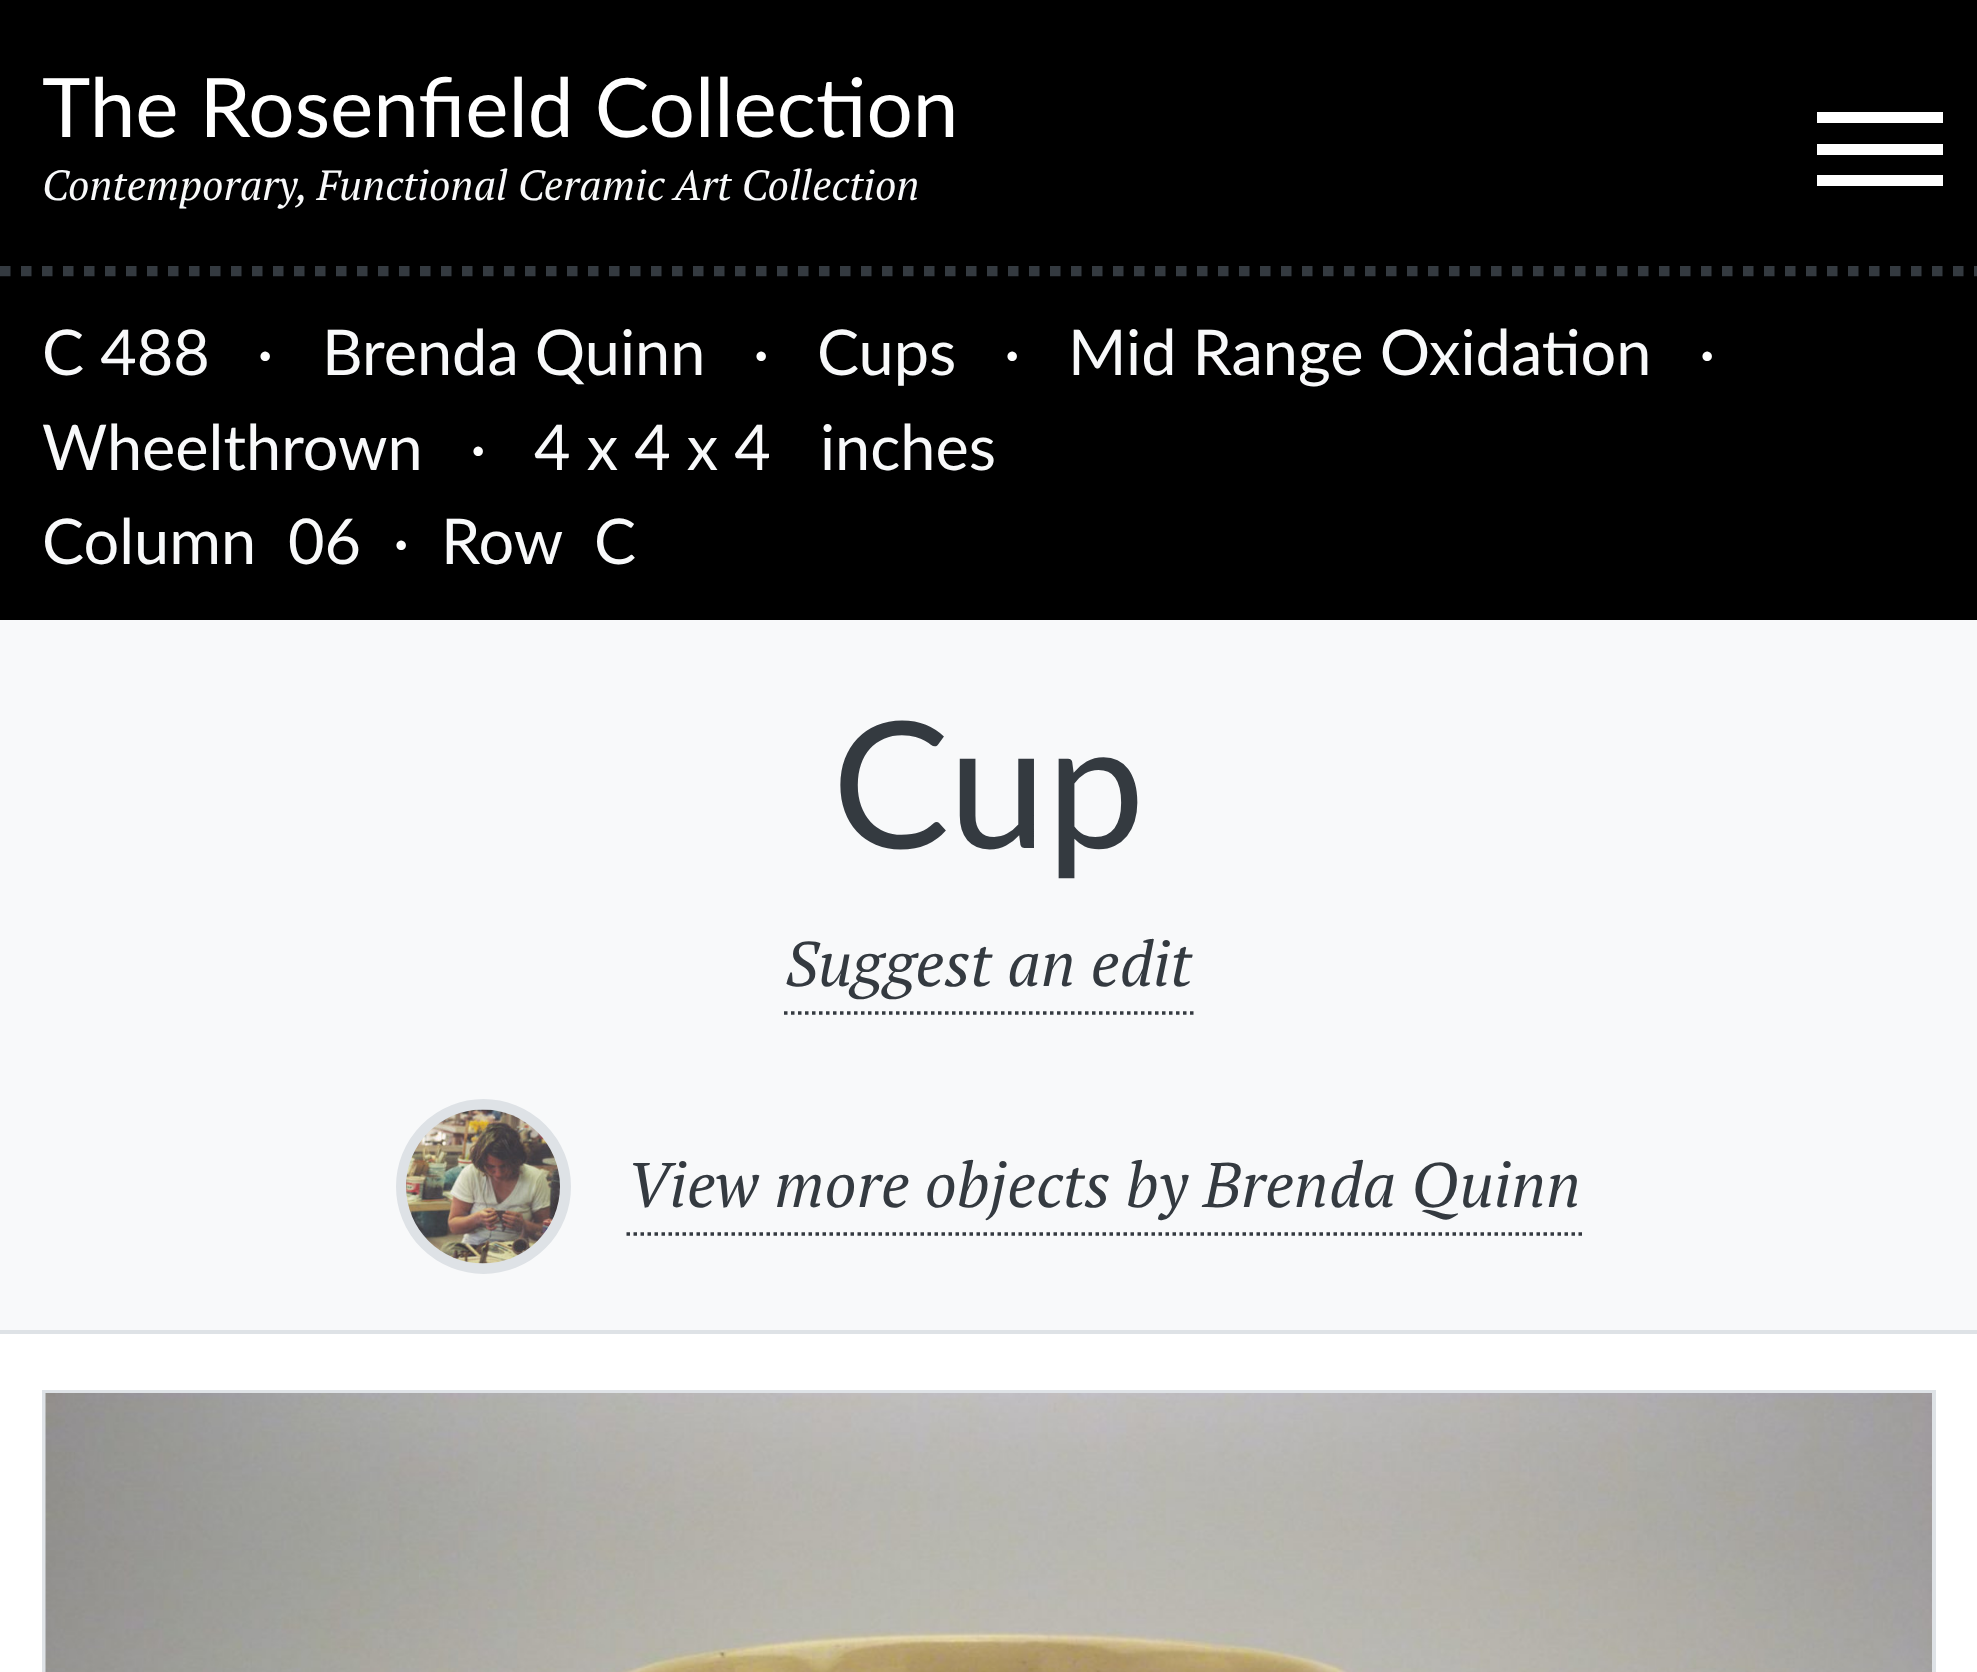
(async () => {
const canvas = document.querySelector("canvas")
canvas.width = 1977
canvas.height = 1672
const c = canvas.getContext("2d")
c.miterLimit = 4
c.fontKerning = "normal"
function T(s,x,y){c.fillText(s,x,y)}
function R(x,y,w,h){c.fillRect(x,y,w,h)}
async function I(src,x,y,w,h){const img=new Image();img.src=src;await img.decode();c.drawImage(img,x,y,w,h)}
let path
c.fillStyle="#fff"
R(0,0,1977,1672)
c.fillStyle="#000"
R(0,266,1977,354)
path = new Path2D("M0 271h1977.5")
c.strokeStyle="#343a40"
c.lineWidth=10.5
c.setLineDash([10.5,10.5])
c.stroke(path)
R(0,0,1977,266)
c.font="81.9px Lato"
c.fillStyle="#fff"
T("The Rosenfield Collection",42,137)
c.font="italic 42px PT Serif"
c.fillStyle="#f8f9fa"
T("Contemporary, Functional Ceramic Art Collection",42,200)
c.fillStyle="#fff"
R(1817,144,126,11)
R(1817,112,126,11)
R(1817,175,126,11)
c.font="63px Lato"
c.fillStyle="#f8f9fa"
T("C 488",42,375)
c.fillStyle="#fff"
T("·",257,375)
c.fillStyle="#f8f9fa"
T("Brenda Quinn",322,375)
c.fillStyle="#fff"
T("·",753,375)
c.fillStyle="#f8f9fa"
T("Cups",817,375)
c.fillStyle="#fff"
T("·",1004,375)
c.fillStyle="#f8f9fa"
T("Mid Range Oxidation",1068,375)
c.fillStyle="#fff"
T("·",1699,375)
c.fillStyle="#f8f9fa"
T("Wheelthrown",42,470)
c.fillStyle="#fff"
T("·",470,470)
c.fillStyle="#f8f9fa"
T("4 x 4 x 4",534,470)
T("inches",820,470)
T("Column",42,564)
T("06",288,564)
c.fillStyle="#fff"
T("·",393,564)
c.fillStyle="#f8f9fa"
T("Row",441,564)
T("C",594,564)
R(0,620,1977,710)
c.fillStyle="#dee2e6"
R(0,1330,1977,4)
c.font="176px Lato"
c.fillStyle="#343a40"
T("Cup",832,848)
path = new Path2D("M784 1013h409.5")
c.lineWidth=3.5
c.setLineDash([3.5,3.5])
c.stroke(path)
c.font="italic 63px PT Serif"
T("Suggest an edit",785,986)
c.beginPath()
c.arc(483.5,1186.5,82,0,7)
c.strokeStyle="#dee2e6"
c.lineWidth=11
c.setLineDash([])
c.stroke()
await I("1.png",406,1109,154,155)
path = new Path2D("M626.5 1234h955.5")
c.strokeStyle="#343a40"
c.lineWidth=3.5
c.setLineDash([3.5,3.5])
c.stroke(path)
T("View more objects by Brenda Quinn",627,1207)
c.strokeStyle="#dee2e6"
c.lineWidth=4
c.setLineDash([])
c.strokeRect(44,1392,1890,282)
await I("2.png",45,1393,1887,279)
})()
